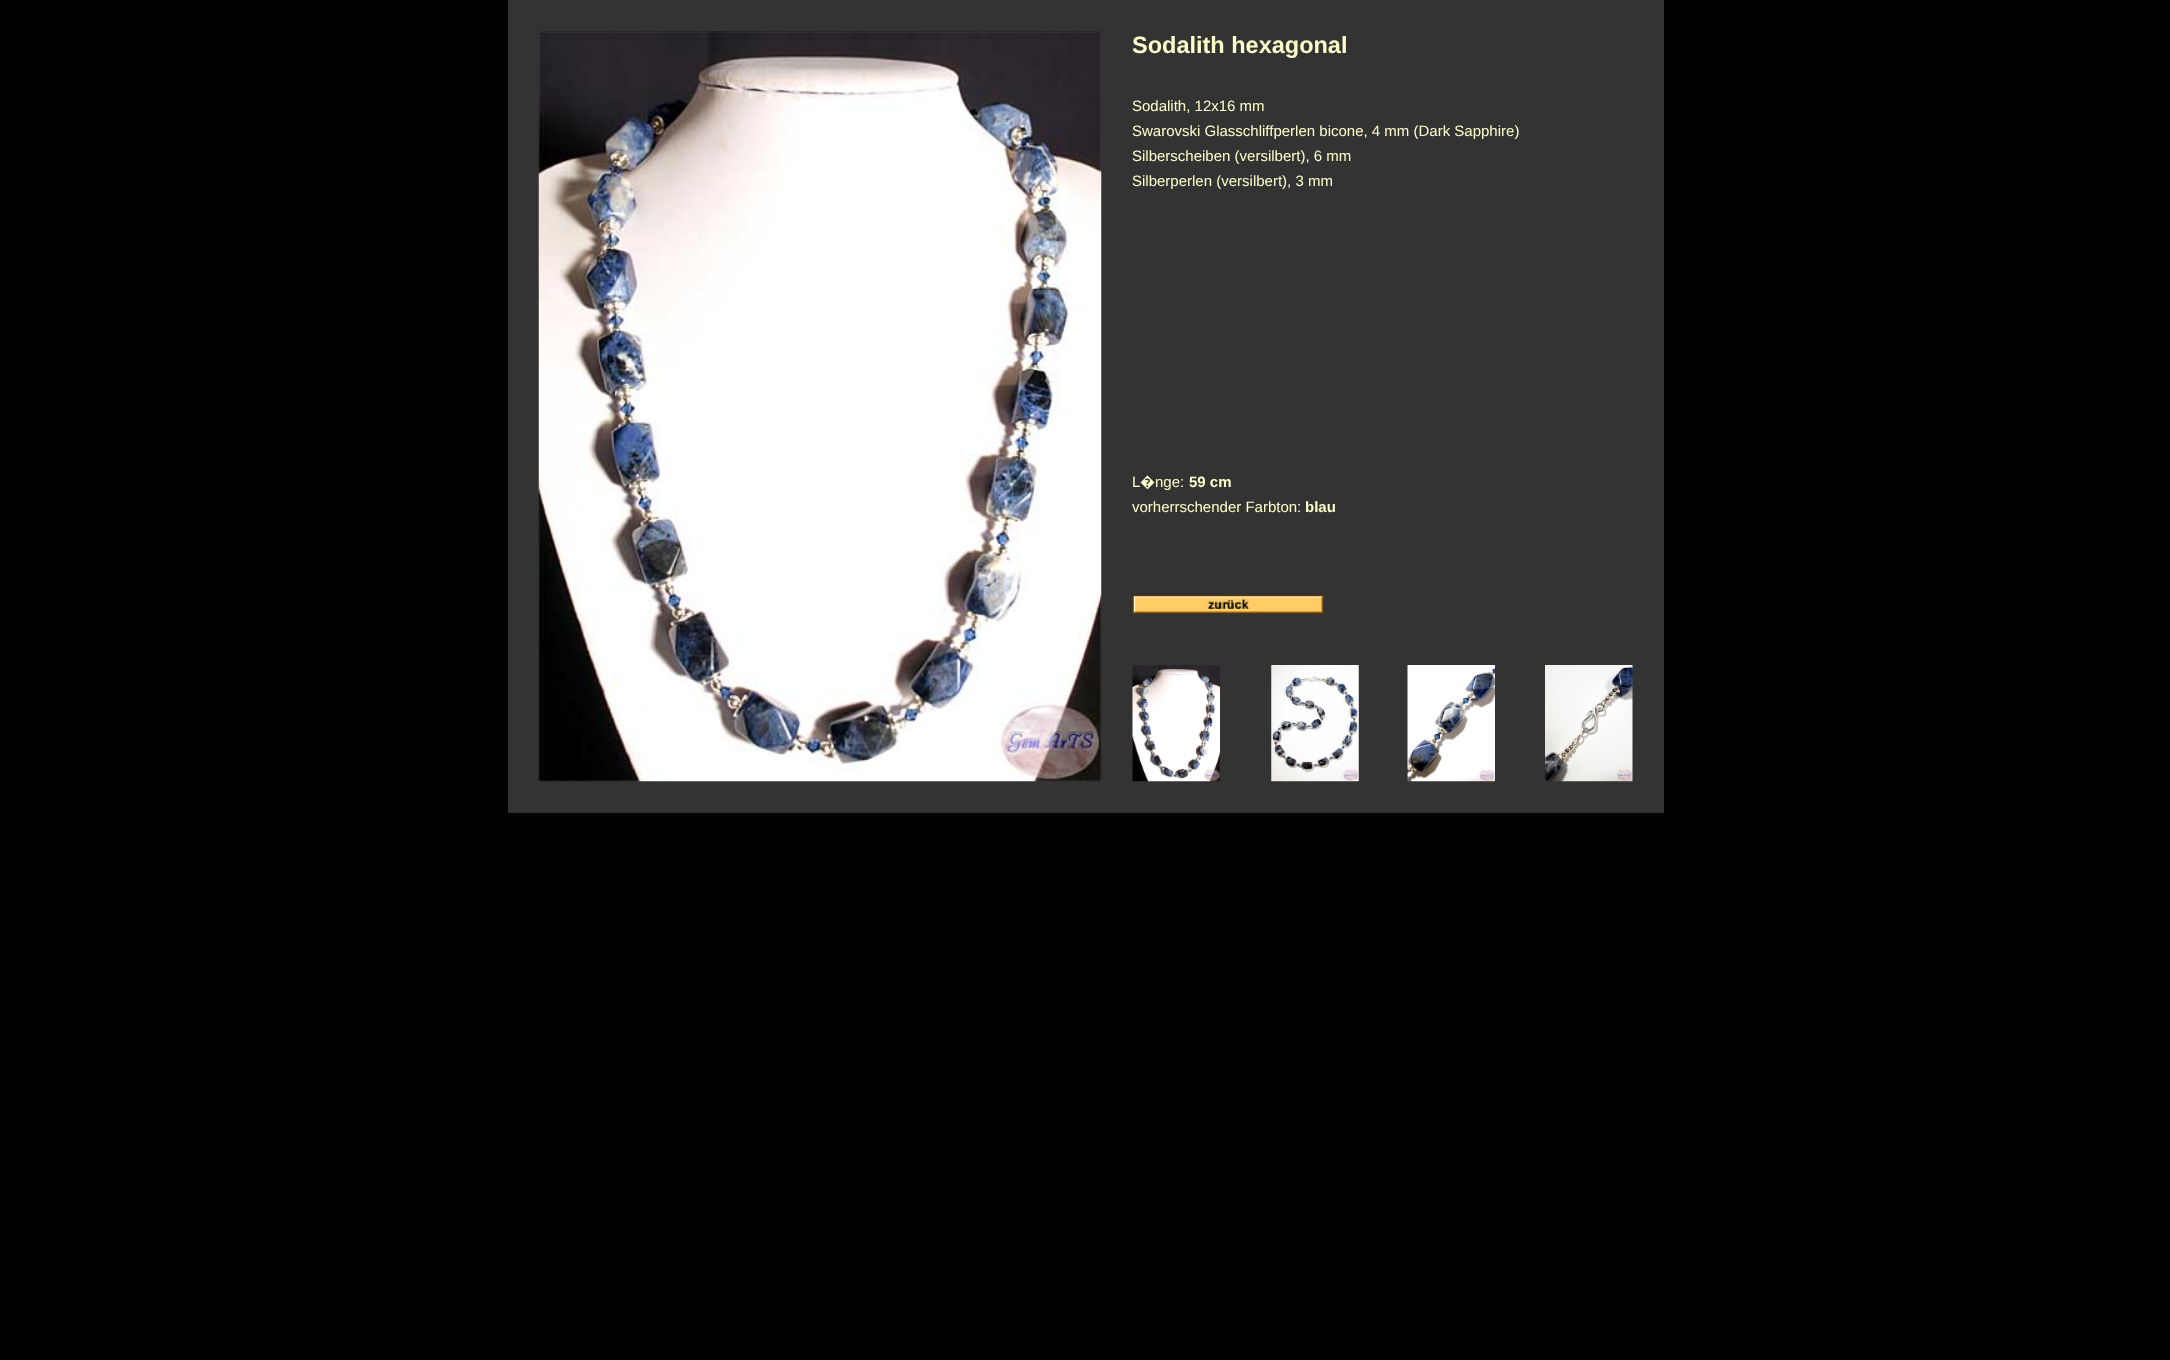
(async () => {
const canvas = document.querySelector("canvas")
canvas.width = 2170
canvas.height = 1360
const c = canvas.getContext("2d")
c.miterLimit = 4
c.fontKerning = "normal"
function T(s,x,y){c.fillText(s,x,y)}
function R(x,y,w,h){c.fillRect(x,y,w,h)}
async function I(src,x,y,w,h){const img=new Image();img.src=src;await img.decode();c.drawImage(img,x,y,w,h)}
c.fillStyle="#000"
R(0,0,2170,1360)
c.fillStyle="#333"
R(508,0,31,813)
R(539,0,1094,31)
R(1633,0,31,813)
R(1101,31,32,750)
R(539,781,1094,32)
await I("1.png",538,31,564,751)
R(1133,31,500,564)
c.font="bold 23.5px Liberation Sans"
c.fillStyle="#ffc"
T("Sodalith hexagonal",1132,53)
c.font="15px Liberation Sans"
T("Sodalith, 12x16 mm",1132,111)
T("Swarovski Glasschliffperlen bicone, 4 mm (Dark Sapphire)",1132,136)
T("Silberscheiben (versilbert), 6 mm",1132,161)
T("Silberperlen (versilbert), 3 mm",1132,186)
T("L",1132,487)
c.font="15px Noto Sans"
T("�",1140,487)
c.font="15px Liberation Sans"
T("nge:",1155,487)
c.font="bold 15px Liberation Sans"
T("59 cm",1189,487)
c.font="15px Liberation Sans"
T("vorherrschender Farbton:",1132,512)
c.font="bold 15px Liberation Sans"
T("blau",1305,512)
c.fillStyle="#333"
R(1133,595,500,61)
await I("2.png",1132,595,192,19)
R(1133,656,500,125)
await I("3.png",1132,665,88,117)
await I("4.png",1271,665,88,117)
await I("5.png",1407,665,88,117)
await I("6.png",1545,665,88,117)
})()
